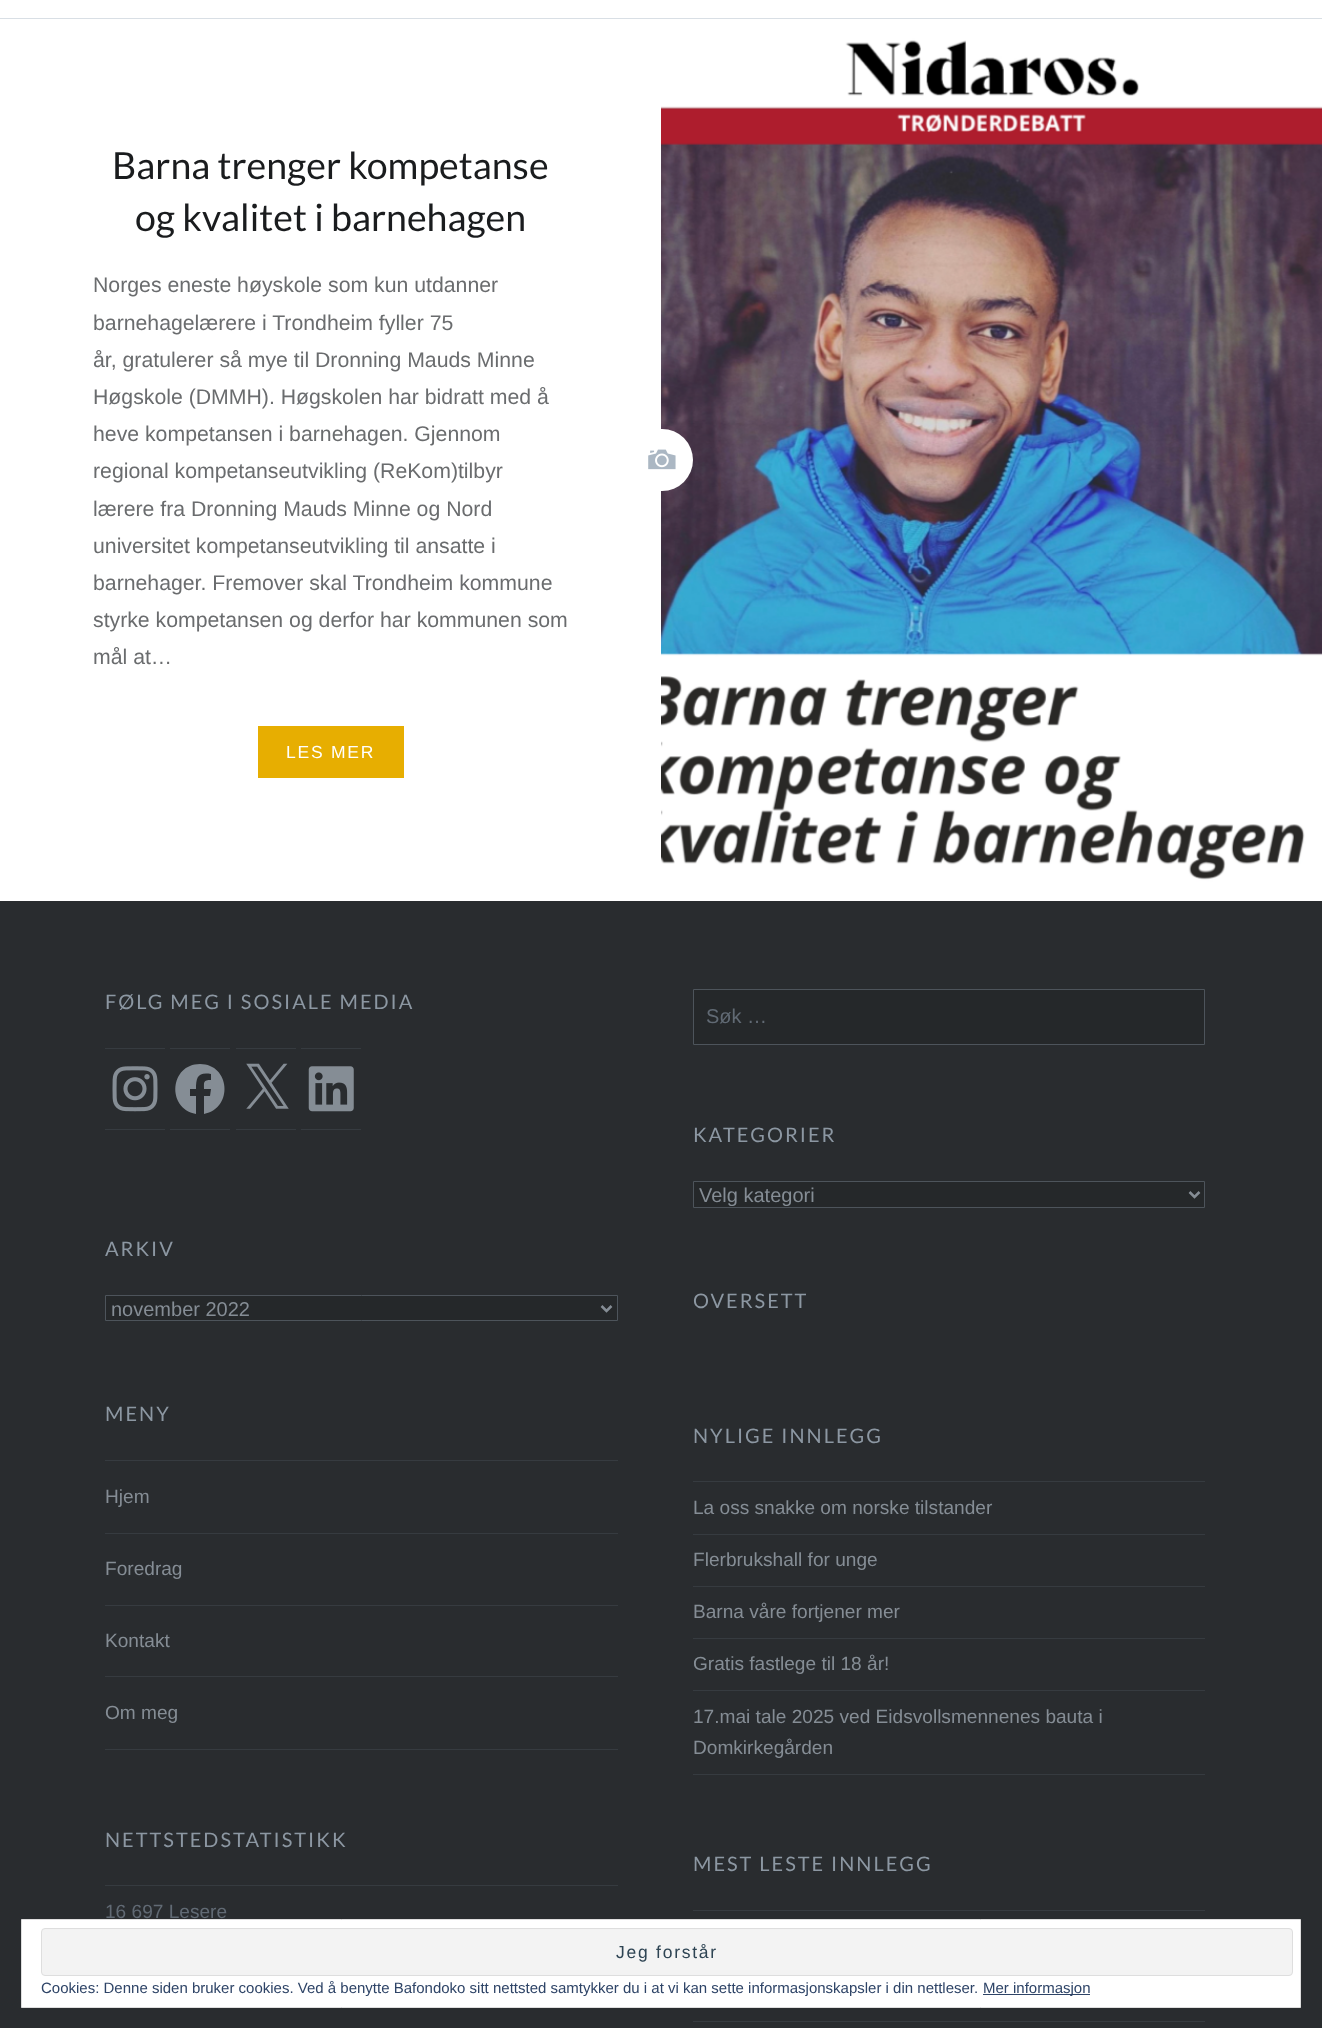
(async () => {
const canvas = document.querySelector("canvas")
canvas.width = 1322
canvas.height = 2028
const c = canvas.getContext("2d")
c.miterLimit = 4
c.fontKerning = "normal"
function T(s,x,y){c.fillText(s,x,y)}
function R(x,y,w,h){c.fillRect(x,y,w,h)}
function Q(x,y,w,h,r){c.beginPath();c.roundRect(x,y,w,h,r);c.fill()}
async function I(src,x,y,w,h){const img=new Image();img.src=src;await img.decode();c.drawImage(img,x,y,w,h)}
let path
c.fillStyle="#fff"
R(0,0,1322,2028)
c.fillStyle="#d9dfe5"
R(0,18,1322,1)
c.font="37.5px Lato"
c.fillStyle="#1a1c1e"
T("Barna trenger kompetanse",112,179)
T("og kvalitet i barnehagen",135,231)
c.font="21.25px Arimo"
c.fillStyle="#6a6c6e"
T("Norges eneste høyskole som kun utdanner",93,292)
T("barnehagelærere i Trondheim fyller 75",93,330)
T("år, gratulerer så mye til Dronning Mauds Minne",93,367)
T("Høgskole (DMMH). Høgskolen har bidratt med å",93,404)
T("heve kompetansen i barnehagen. Gjennom",93,441)
T("regional kompetanseutvikling (ReKom)tilbyr",93,478)
T("lærere fra Dronning Mauds Minne og Nord",93,516)
T("universitet kompetanseutvikling til ansatte i",93,553)
T("barnehager. Fremover skal Trondheim kommune",93,590)
T("styrke kompetansen og derfor har kommunen som",93,627)
T("mål at…",93,664)
c.fillStyle="#e7ae01"
R(258,726,146,52)
c.letterSpacing="1.75px"
c.font="17.5px Arimo"
c.fillStyle="#fff"
T("LES MER",286,758)
await I("2.png",661,19,661,882)
Q(630,429,63,62,31)
await I("1.png",648,449,28,21)
c.fillStyle="#292c2f"
R(0,901,1322,1127)
c.letterSpacing="2px"
c.font="20px Lato"
c.fillStyle="#8c97a2"
T("FØLG MEG I SOSIALE MEDIA",105,1009)
c.fillStyle="#363b40"
R(105,1048,60,1)
R(105,1129,60,1)
await I("3.png",112,1066,46,46)
R(170,1048,60,1)
R(170,1129,60,1)
c.fillStyle="#858d95"
path = new Path2D("M200 1064c-30 0-34 44-4 50v-18h-6v-7h6c0-12 2-17 15-15v6c-8 0-7 2-7 9h7l-1 7h-6v18c30-6 26-50-4-50z")
c.fill(path)
c.fillStyle="#363b40"
R(236,1048,60,1)
R(236,1129,60,1)
await I("4.png",246,1063,43,46)
R(301,1048,60,1)
R(301,1129,60,1)
await I("5.png",308,1066,46,46)
c.fillStyle="#25282a"
c.beginPath()
c.rect(693.5,989.5,511,55)
c.fill()
c.strokeStyle="#4d545b"
c.stroke()
c.letterSpacing="0px"
c.font="20px Arimo"
c.fillStyle="#616a74"
T("Søk …",706,1023)
c.letterSpacing="2px"
c.font="20px Lato"
c.fillStyle="#8c97a2"
T("KATEGORIER",693,1142)
c.fillStyle="#25282a"
c.beginPath()
c.rect(693.5,1181.5,511,26)
c.fill()
c.stroke()
path = new Path2D("M1189.5 1192l5 5l5-5")
c.strokeStyle="#858d95"
c.lineWidth=2.5
c.stroke(path)
c.save()
c.beginPath()
c.rect(699,1183,485,23)
c.clip()
c.letterSpacing="0px"
c.font="20px Arimo"
c.fillStyle="#858d95"
T("Velg kategori",699,1202)
c.restore()
c.fillStyle="#8c97a2"
T("ARKIV",105,1256)
c.fillStyle="#25282a"
c.beginPath()
c.rect(105.5,1295.5,512,25)
c.fill()
c.strokeStyle="#4d545b"
c.lineWidth=1
c.stroke()
path = new Path2D("M601.5 1306l5 5l5-5")
c.strokeStyle="#858d95"
c.lineWidth=2.5
c.stroke(path)
c.letterSpacing="0px"
c.font="20px Arimo"
c.fillStyle="#858d95"
T("november 2022",111,1316)
c.letterSpacing="2px"
c.font="20px Lato"
c.fillStyle="#8c97a2"
T("OVERSETT",693,1308)
T("MENY",105,1421)
c.fillStyle="#363b40"
R(105,1460,513,1)
R(105,1533,513,1)
c.letterSpacing="0px"
c.font="19.1px Arimo"
c.fillStyle="#858d95"
T("Hjem",105,1503)
c.fillStyle="#363b40"
R(105,1605,513,1)
c.fillStyle="#858d95"
T("Foredrag",105,1575)
c.fillStyle="#363b40"
R(105,1676,513,1)
c.fillStyle="#858d95"
T("Kontakt",105,1647)
c.fillStyle="#363b40"
R(105,1749,513,1)
c.fillStyle="#858d95"
T("Om meg",105,1719)
c.letterSpacing="2px"
c.font="20px Lato"
c.fillStyle="#8c97a2"
T("NYLIGE INNLEGG",693,1443)
c.fillStyle="#363b40"
R(693,1481,512,1)
R(693,1534,512,1)
c.letterSpacing="0px"
c.font="19.1px Arimo"
c.fillStyle="#858d95"
T("La oss snakke om norske tilstander",693,1514)
c.fillStyle="#363b40"
R(693,1586,512,1)
c.fillStyle="#858d95"
T("Flerbrukshall for unge",693,1566)
c.fillStyle="#363b40"
R(693,1638,512,1)
c.fillStyle="#858d95"
T("Barna våre fortjener mer",693,1618)
c.fillStyle="#363b40"
R(693,1690,512,1)
c.fillStyle="#858d95"
T("Gratis fastlege til 18 år!",693,1670)
c.fillStyle="#363b40"
R(693,1774,512,1)
c.fillStyle="#858d95"
T("17.mai tale 2025 ved Eidsvollsmennenes bauta i",693,1723)
T("Domkirkegården",693,1754)
c.letterSpacing="2px"
c.font="20px Lato"
c.fillStyle="#8c97a2"
T("NETTSTEDSTATISTIKK",105,1847)
c.fillStyle="#363b40"
R(105,1885,513,1)
c.letterSpacing="0px"
c.font="19.1px Arimo"
c.fillStyle="#616a74"
T("16 697 Lesere",105,1918)
c.letterSpacing="2px"
c.font="20px Lato"
c.fillStyle="#8c97a2"
T("MEST LESTE INNLEGG",693,1871)
c.fillStyle="#363b40"
R(693,1910,512,1)
R(693,2021,512,1)
c.fillStyle="#fff"
c.beginPath()
c.rect(21.5,1919.5,1279,88)
c.fill()
c.strokeStyle="#dedede"
c.lineWidth=1
c.stroke()
c.fillStyle="#f3f3f3"
c.beginPath()
c.roundRect(41.5,1928.5,1251,47,3.5)
c.fill()
c.stroke()
c.letterSpacing="1.75px"
c.font="17.5px Arimo"
c.fillStyle="#2e4453"
T("Jeg forstår",616,1958)
c.letterSpacing="0px"
c.font="15px Arimo"
c.fillStyle="#2e4467"
T("Cookies: Denne siden bruker cookies. Ved å benytte Bafondoko sitt nettsted samtykker du i at vi kan sette informasjonskapsler i din nettleser.",41,1993)
R(983,1994,107,1)
T("Mer informasjon",983,1993)
})()
